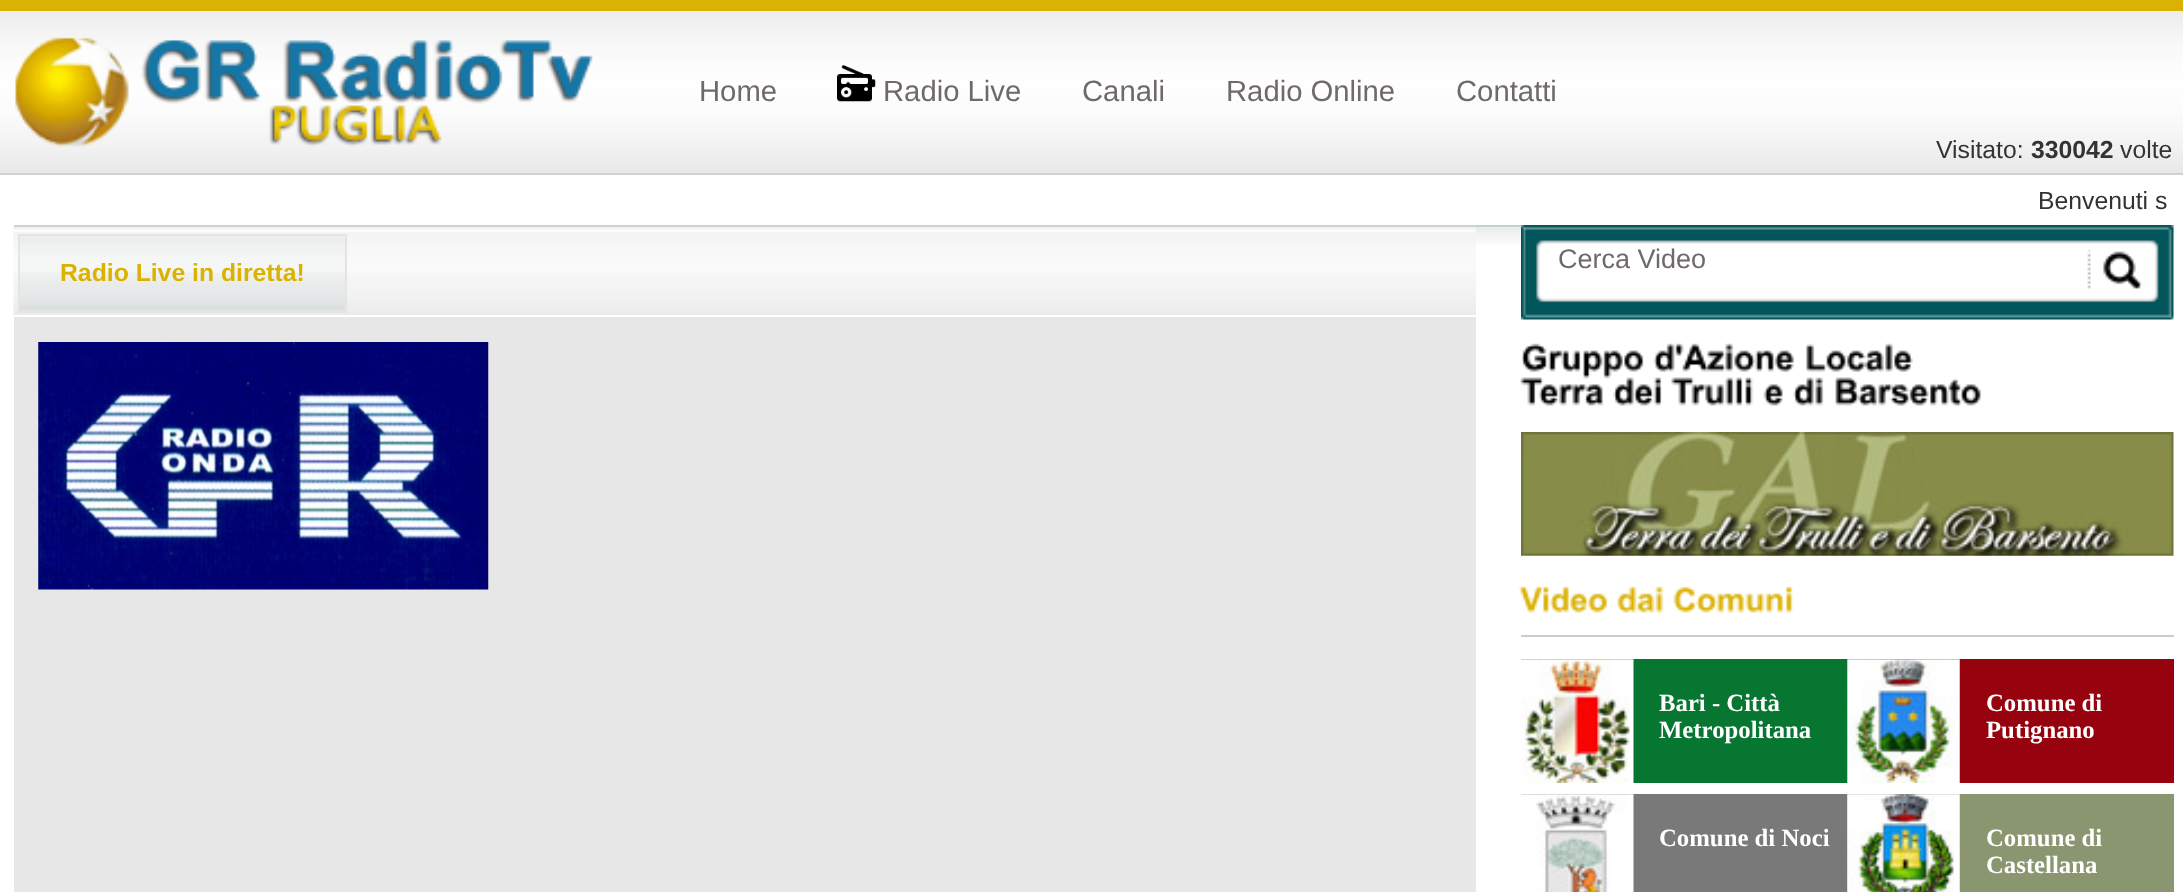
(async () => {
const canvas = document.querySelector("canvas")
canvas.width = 2183
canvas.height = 892
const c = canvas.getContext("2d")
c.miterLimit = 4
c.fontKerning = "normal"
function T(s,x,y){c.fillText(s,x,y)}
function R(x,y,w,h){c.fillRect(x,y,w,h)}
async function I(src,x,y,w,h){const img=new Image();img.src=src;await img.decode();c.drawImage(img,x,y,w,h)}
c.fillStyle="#fff"
R(0,0,2183,892)
await I("1.png",0,11,2183,162)
c.fillStyle="#dbb102"
R(0,0,2183,11)
c.fillStyle="#d1d1d1"
R(0,173,2183,2)
await I("2.png",15,37,578,110)
c.font="29.25px Liberation Sans"
c.fillStyle="#6f696b"
T("Home",699,101)
await I("3.png",837,65,39,37)
T("Radio Live",883,101)
T("Canali",1082,101)
T("Radio Online",1226,101)
T("Contatti",1456,101)
c.font="24.75px Liberation Sans"
c.fillStyle="#333"
T("Visitato:",1936,158)
c.font="bold 24.75px Liberation Sans"
T("330042",2031,158)
c.font="24.75px Liberation Sans"
T("volte",2120,158)
T("Benvenuti s",2038,209)
await I("4.png",13,227,2161,17)
c.fillStyle="#c1d2d3"
R(1476,225,698,2)
c.fillStyle="#e7e7e7"
R(14,227,1462,665)
c.fillStyle="#d1d1d1"
R(14,225,1462,2)
await I("5.png",13,227,1463,90)
c.fillStyle="#fff"
R(14,315,1462,2)
await I("6.png",20,236,325,75)
c.strokeStyle="#e4e4e4"
c.lineWidth=2
c.strokeRect(19,235,327,77)
c.font="bold 24.75px Liberation Sans"
c.fillStyle="#dbb102"
T("Radio Live in diretta!",60,281)
await I("7.png",38,342,451,248)
await I("8.png",1521,225,653,95)
c.font="27px Liberation Sans"
c.fillStyle="#6f696b"
T("Cerca Video",1558,268)
await I("9.png",1521,343,123,36)
await I("10.png",1653,343,141,29)
await I("11.png",1806,343,107,29)
await I("12.png",1520,377,84,29)
await I("13.png",1613,377,49,29)
await I("14.png",1671,377,83,29)
await I("15.png",1763,384,20,22)
await I("16.png",1793,377,31,29)
await I("17.png",1835,377,146,29)
await I("18.png",1521,432,653,124)
c.fillStyle="#ccc"
R(1521,635,653,2)
await I("19.png",1518,586,90,27)
await I("20.png",1617,586,47,27)
await I("21.png",1673,586,121,27)
c.fillStyle="#067630"
R(1521,659,326,124)
await I("22.png",1521,659,113,124)
c.font="bold 24.75px Liberation Serif"
c.fillStyle="#fff"
T("Bari - Città",1659,711)
T("Metropolitana",1659,738)
c.fillStyle="#97020f"
R(1847,659,327,124)
await I("23.png",1847,659,113,124)
c.fillStyle="#fff"
T("Comune di",1986,711)
T("Putignano",1986,738)
c.fillStyle="#797979"
R(1521,794,326,98)
await I("24.png",1521,794,113,98)
c.fillStyle="#fff"
T("Comune di Noci",1659,846)
c.fillStyle="#89966f"
R(1847,794,327,98)
await I("25.png",1847,794,113,98)
c.fillStyle="#fff"
T("Comune di",1986,846)
T("Castellana",1986,873)
})()
